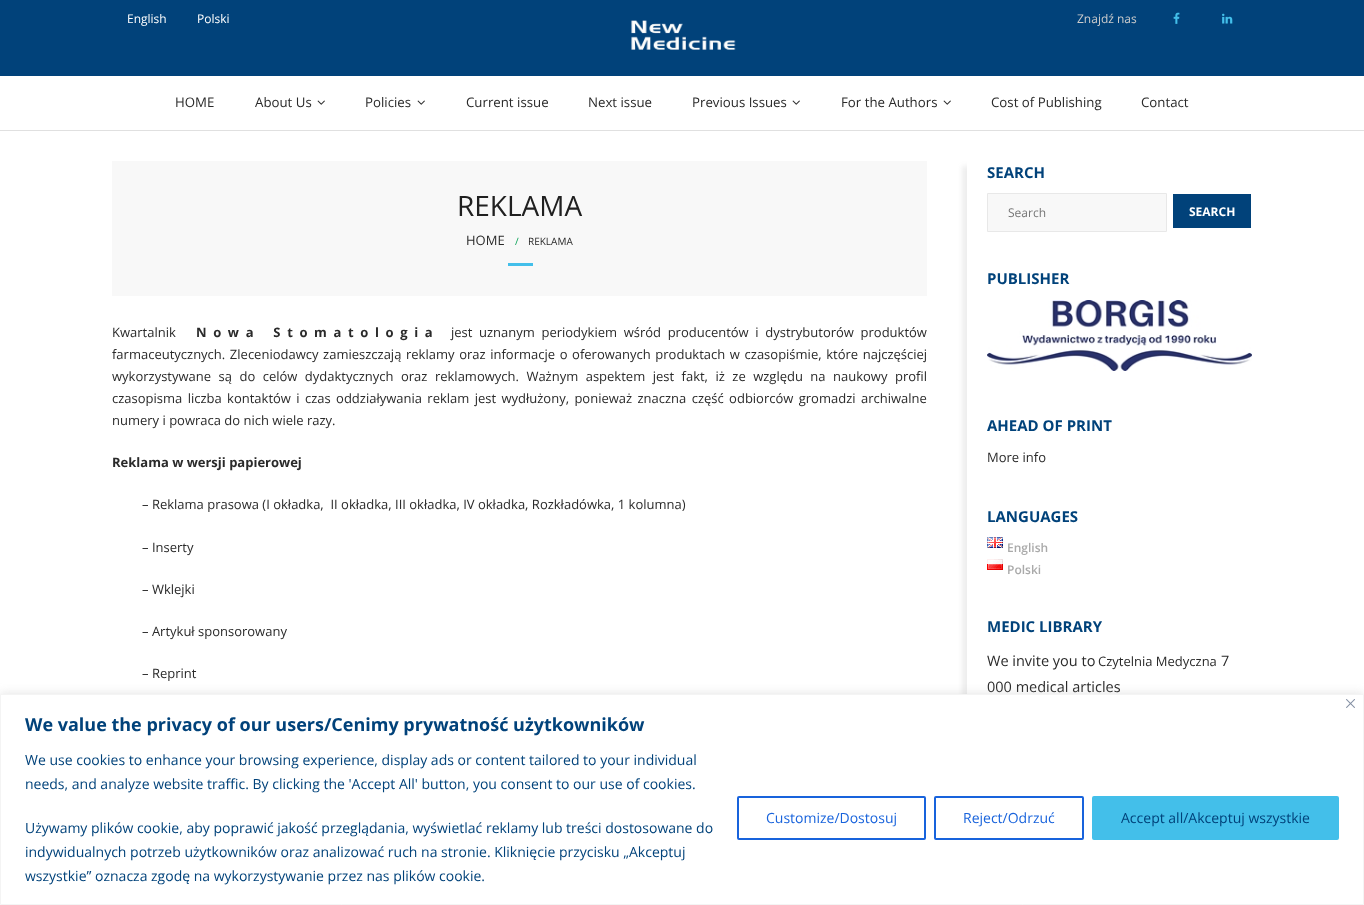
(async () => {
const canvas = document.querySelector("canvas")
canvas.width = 1364
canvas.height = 905
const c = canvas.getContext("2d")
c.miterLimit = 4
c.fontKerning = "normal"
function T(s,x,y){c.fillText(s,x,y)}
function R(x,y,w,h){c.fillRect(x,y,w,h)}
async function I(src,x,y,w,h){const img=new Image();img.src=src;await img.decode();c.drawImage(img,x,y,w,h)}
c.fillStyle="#fff"
R(0,0,1364,905)
c.fillStyle="#01427a"
R(0,0,1364,76)
c.font="12px Open Sans"
c.fillStyle="#fff"
T("English",127,23)
T("Polski",197,23)
c.fillStyle="#ccc"
T("Znajdź nas",1077,23)
await I("1.png",1173,12,7,12)
await I("2.png",1222,13,11,11)
c.fillStyle="#e0e0e0"
R(0,130,1364,1)
await I("3.png",631,20,105,30)
c.font="13.25px Open Sans"
c.fillStyle="#2a2a2a"
T("HOME",175,107)
T("About Us",255,107)
await I("4.png",317,100,8,5)
T("Policies",365,107)
await I("4.png",417,100,8,5)
T("Current issue",466,107)
T("Next issue",588,107)
T("Previous Issues",692,107)
await I("4.png",792,100,8,5)
T("For the Authors",841,107)
await I("4.png",943,100,8,5)
T("Cost of Publishing",991,107)
T("Contact",1141,107)
c.fillStyle="#f8f8f8"
R(112,161,815,135)
c.font="28px Open Sans"
c.fillStyle="#202020"
T("REKLAMA",457,216)
c.font="13px Open Sans"
c.fillStyle="#2a2a2a"
T("HOME",466,245)
c.font="10px Open Sans"
c.fillStyle="#0aa257"
T("/",515,245)
c.fillStyle="#2a2a2a"
T("REKLAMA",528,245)
c.fillStyle="#43bfea"
R(508,263,25,3)
c.font="13px Open Sans"
c.fillStyle="#2a2a2a"
T("Kwartalnik",112,337)
c.wordSpacing="3.25px"
c.font="bold 13px Open Sans"
T("N o w a   S t o m a t o l o g i a",196,337)
c.font="13px Open Sans"
T("jest uznanym periodykiem wśród producentów i dystrybutorów produktów",451,337)
c.wordSpacing="1.25px"
T("farmaceutycznych. Zleceniodawcy zamieszczają reklamy oraz informacje o oferowanych produktach w czasopiśmie, które najczęściej",112,359)
c.wordSpacing="4.1px"
T("wykorzystywane są do celów dydaktycznych oraz reklamowych. Ważnym aspektem jest fakt, iż ze względu na naukowy profil",112,381)
c.wordSpacing="2px"
T("czasopisma liczba kontaktów i czas oddziaływania reklam jest wydłużony, ponieważ znaczna część odbiorców gromadzi archiwalne",112,403)
c.wordSpacing="0px"
T("numery i powraca do nich wiele razy.",112,425)
c.font="bold 13px Open Sans"
T("Reklama w wersji papierowej",112,467)
c.font="13px Open Sans"
T("– Reklama prasowa (I okładka,  II okładka, III okładka, IV okładka, Rozkładówka, 1 kolumna)",142,509)
T("– Inserty",142,552)
T("– Wklejki",142,594)
T("– Artykuł sponsorowany",142,636)
T("– Reprint",142,678)
c.save()
c.beginPath()
c.rect(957,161,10,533)
c.clip()
c.fillStyle="#eee"
c.filter="blur(2.5px)"
c.beginPath()
c.rect(962,166,285,697)
c.fill()
c.filter="none"
c.restore()
c.font="bold 15px Open Sans"
c.fillStyle="#01427a"
T("SEARCH",987,178)
c.fillStyle="#f8f8f8"
c.beginPath()
c.rect(987.5,193.5,179,38)
c.fill()
c.strokeStyle="#e8e8e8"
c.stroke()
c.font="12px Open Sans"
c.fillStyle="#757575"
T("Search",1008,217)
c.fillStyle="#01427a"
R(1173,194,78,34)
c.font="bold 12px Open Sans"
c.fillStyle="#fff"
T("SEARCH",1189,216)
c.font="bold 15px Open Sans"
c.fillStyle="#01427a"
T("PUBLISHER",987,284)
await I("5.png",987,300,265,71)
T("AHEAD OF PRINT",987,431)
c.font="13px Open Sans"
c.fillStyle="#2a2a2a"
T("More info",987,462)
c.font="bold 15px Open Sans"
c.fillStyle="#01427a"
T("LANGUAGES",987,522)
await I("6.png",987,537,16,11)
c.font="600 12px Open Sans"
c.fillStyle="#aaa"
T("English",1007,552)
await I("7.png",987,559,16,11)
T("Polski",1007,574)
c.font="bold 15px Open Sans"
c.fillStyle="#01427a"
T("MEDIC LIBRARY",987,632)
c.font="14.5px Open Sans"
c.fillStyle="#2a2a2a"
T("We invite you to",987,666)
c.font="13px Open Sans"
T("Czytelnia Medyczna",1098,666)
c.font="14.5px Open Sans"
T("7",1221,666)
T("000 medical articles",987,692)
c.fillStyle="#acabab4d"
c.filter="blur(5px)"
c.beginPath()
c.rect(0,693,1364,211)
c.fill()
c.filter="none"
c.fillStyle="#fff"
c.beginPath()
c.rect(.5,694.5,1363,210)
c.fill()
c.strokeStyle="#f4f4f4"
c.stroke()
await I("8.png",1346,699,9,9)
c.font="bold 18px Open Sans"
c.fillStyle="#01427a"
T("We value the privacy of our users/Cenimy prywatność użytkowników",25,731)
c.font="14px Open Sans"
T("We use cookies to enhance your browsing experience, display ads or content tailored to your individual",25,765)
T("needs, and analyze website traffic. By clicking the 'Accept All' button, you consent to our use of cookies.",25,789)
T("Używamy plików cookie, aby poprawić jakość przeglądania, wyświetlać reklamy lub treści dostosowane do",25,833)
T("indywidualnych potrzeb użytkowników oraz analizować ruch na stronie. Kliknięcie przycisku „Akceptuj",25,857)
T("wszystkie” oznacza zgodę na wykorzystywanie przez nas plików cookie.",25,881)
c.beginPath()
c.roundRect(738,797,187,42,1)
c.strokeStyle="#1863dc"
c.lineWidth=2
c.stroke()
c.fillStyle="#1863dc"
T("Customize/Dostosuj",766,823)
c.beginPath()
c.roundRect(935,797,148,42,1)
c.stroke()
T("Reject/Odrzuć",963,823)
c.fillStyle="#43bfea"
c.beginPath()
c.roundRect(1093,797,245,42,1)
c.fill()
c.strokeStyle="#43bfea"
c.stroke()
c.fillStyle="#01427a"
T("Accept all/Akceptuj wszystkie",1121,823)
})()
